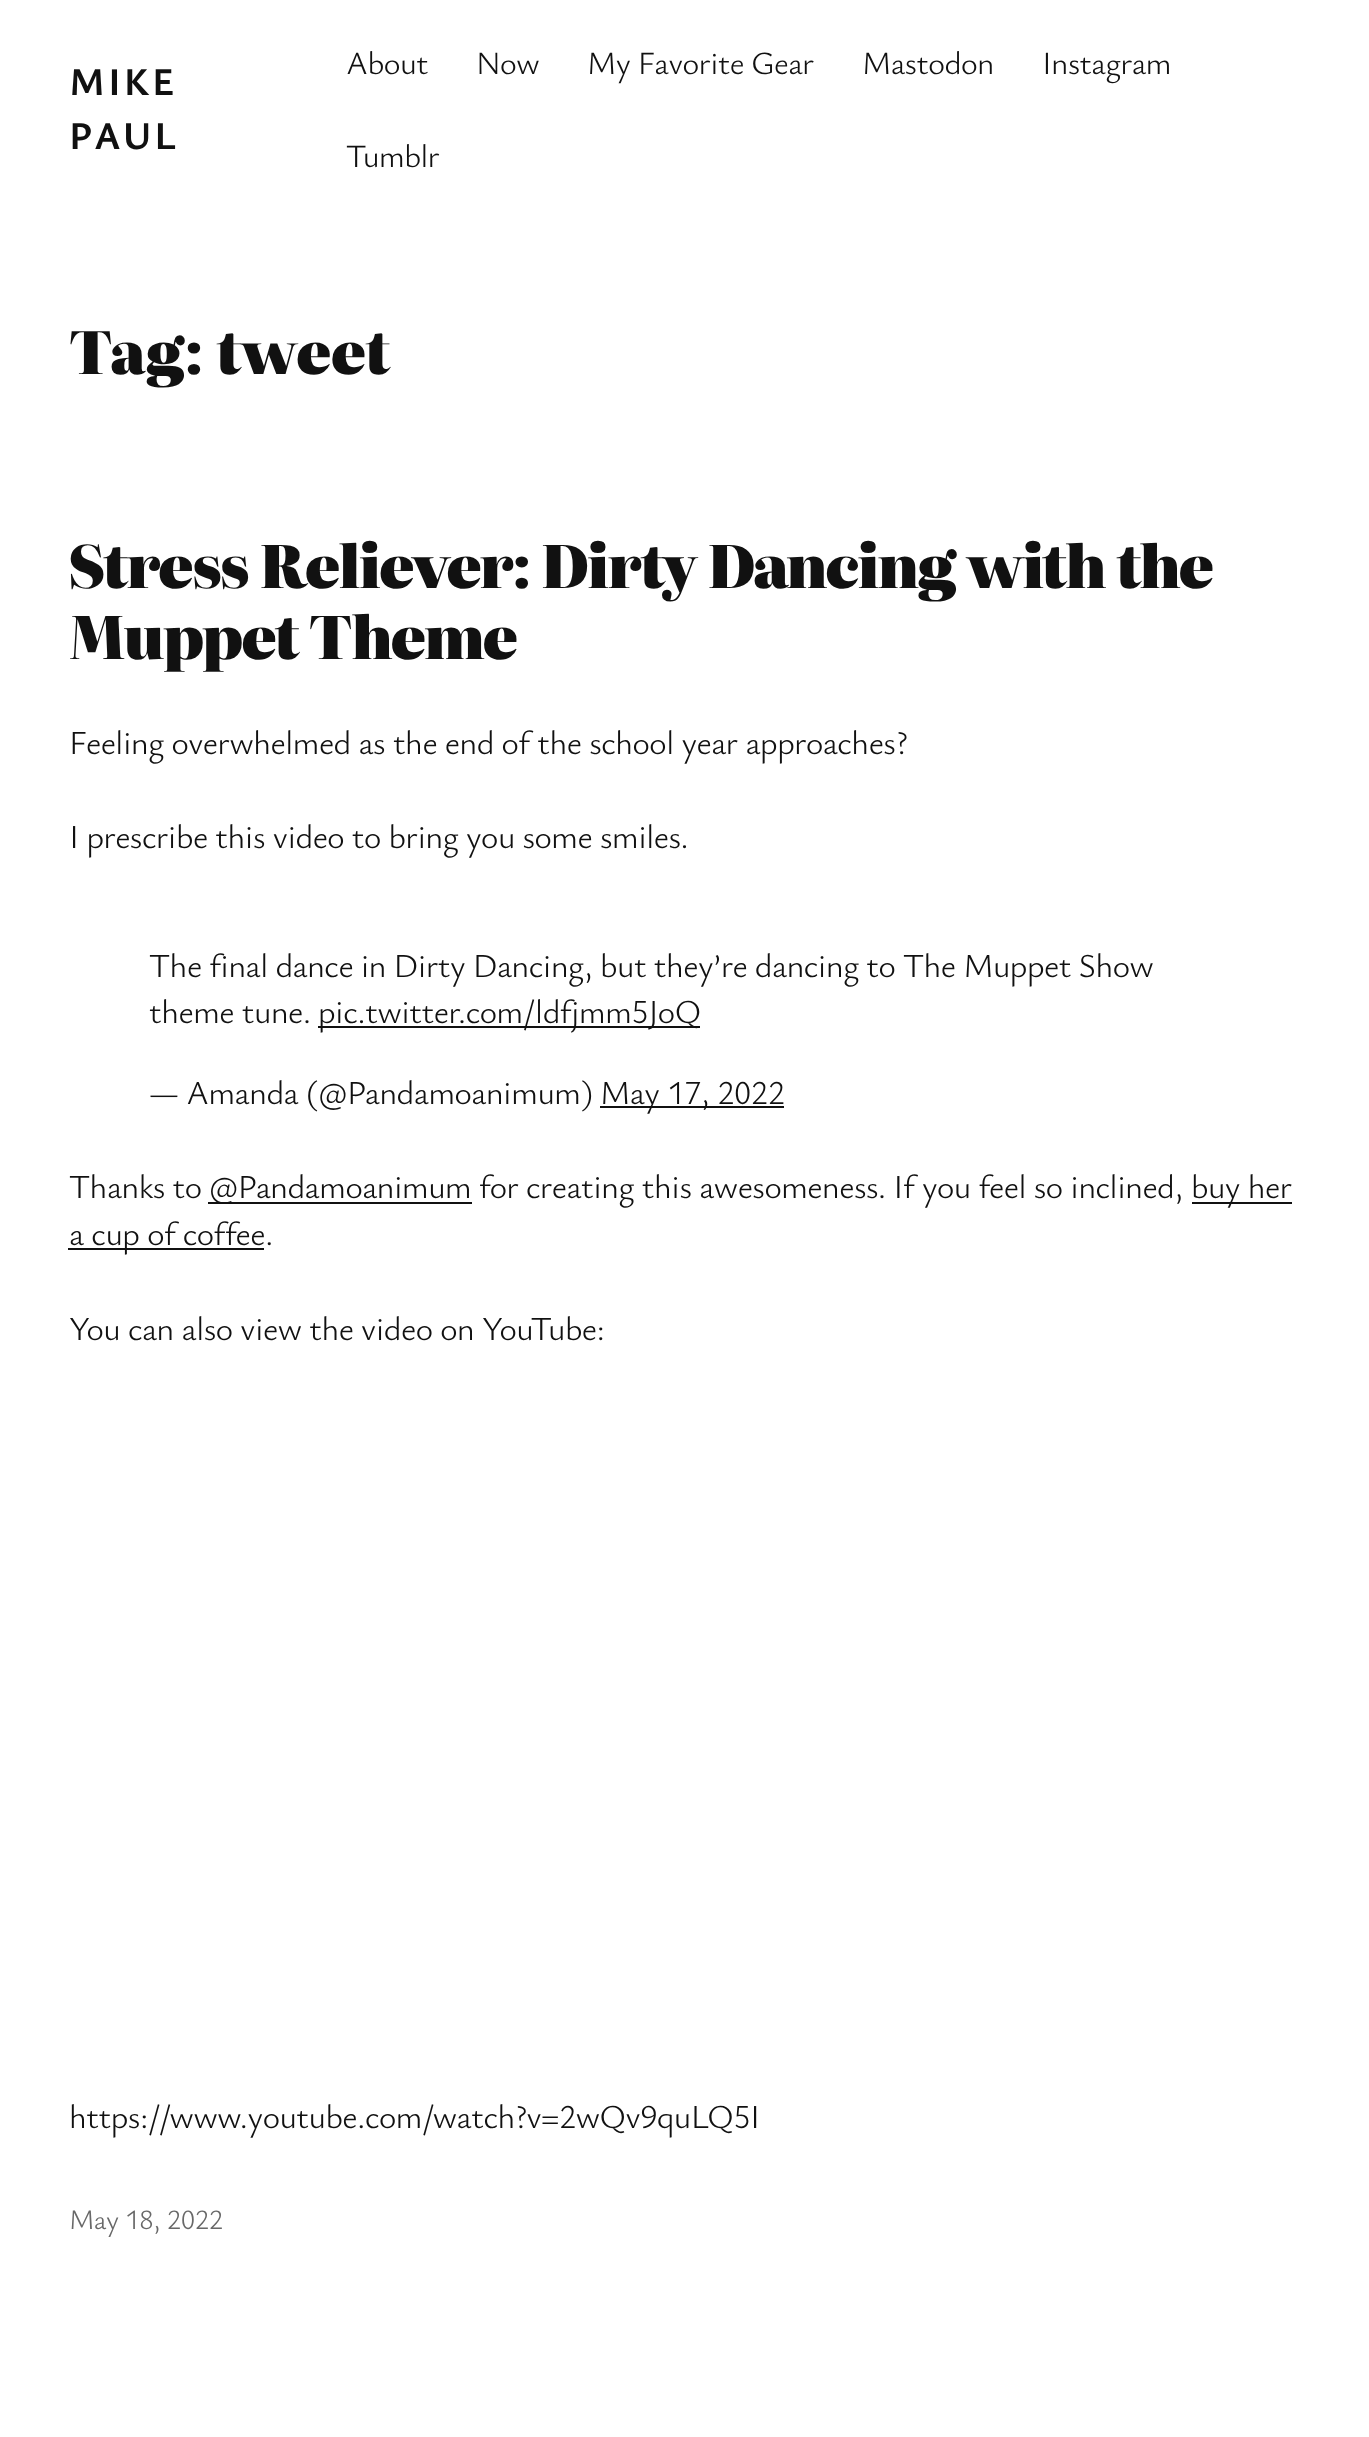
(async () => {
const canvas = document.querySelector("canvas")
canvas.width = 1369
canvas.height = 2437
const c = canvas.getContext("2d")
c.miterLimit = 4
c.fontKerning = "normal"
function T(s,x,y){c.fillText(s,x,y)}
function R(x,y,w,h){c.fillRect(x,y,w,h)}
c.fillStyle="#fff"
R(0,0,1369,2437)
c.letterSpacing="3px"
c.font="bold 39px Ysabeau Office"
c.fillStyle="#111"
T("MIKE",69,95)
T("PAUL",69,149)
c.letterSpacing="-0.48px"
c.font="300 32.25px Ysabeau Office"
T("About",346,74)
T("Now",476,74)
T("My Favorite Gear",587,74)
T("Mastodon",862,74)
T("Instagram",1042,74)
T("Tumblr",346,167)
c.letterSpacing="-0.25px"
c.font="900 58.5px Literata"
T("Tag: tweet",69,374)
c.letterSpacing="-1.9px"
c.font="900 58.9px Literata"
T("Stress Reliever: Dirty Dancing with the",69,588)
T("Muppet Theme",69,659)
c.letterSpacing="-0.48px"
c.font="300 33.4px Ysabeau Office"
T("Feeling overwhelmed as the end of the school year approaches?",69,754)
T("I prescribe this video to bring you some smiles.",69,848)
c.wordSpacing="-0.1px"
T("The final dance in Dirty Dancing, but they’re dancing to The Muppet Show",149,977)
c.wordSpacing="0px"
T("theme tune.",149,1023)
R(318,1026,382,2)
T("pic.twitter.com/ldfjmm5JoQ",318,1023)
T("— Amanda (@Pandamoanimum)",149,1104)
R(600,1106,184,2)
T("May 17, 2022",600,1104)
T("Thanks to",69,1198)
R(208,1202,264,2)
T("@Pandamoanimum for creating this awesomeness. If you feel so inclined,",209,1198)
R(1192,1202,100,2)
T("buy her",1191,1198)
R(68,1248,196,2)
T("a cup of coffee.",69,1245)
T("You can also view the video on YouTube:",69,1340)
T("https://www.youtube.com/watch?v=2wQv9quLQ5I",69,2128)
c.font="300 28px Ysabeau Office"
c.fillStyle="#686868"
T("May 18, 2022",69,2229)
})()
